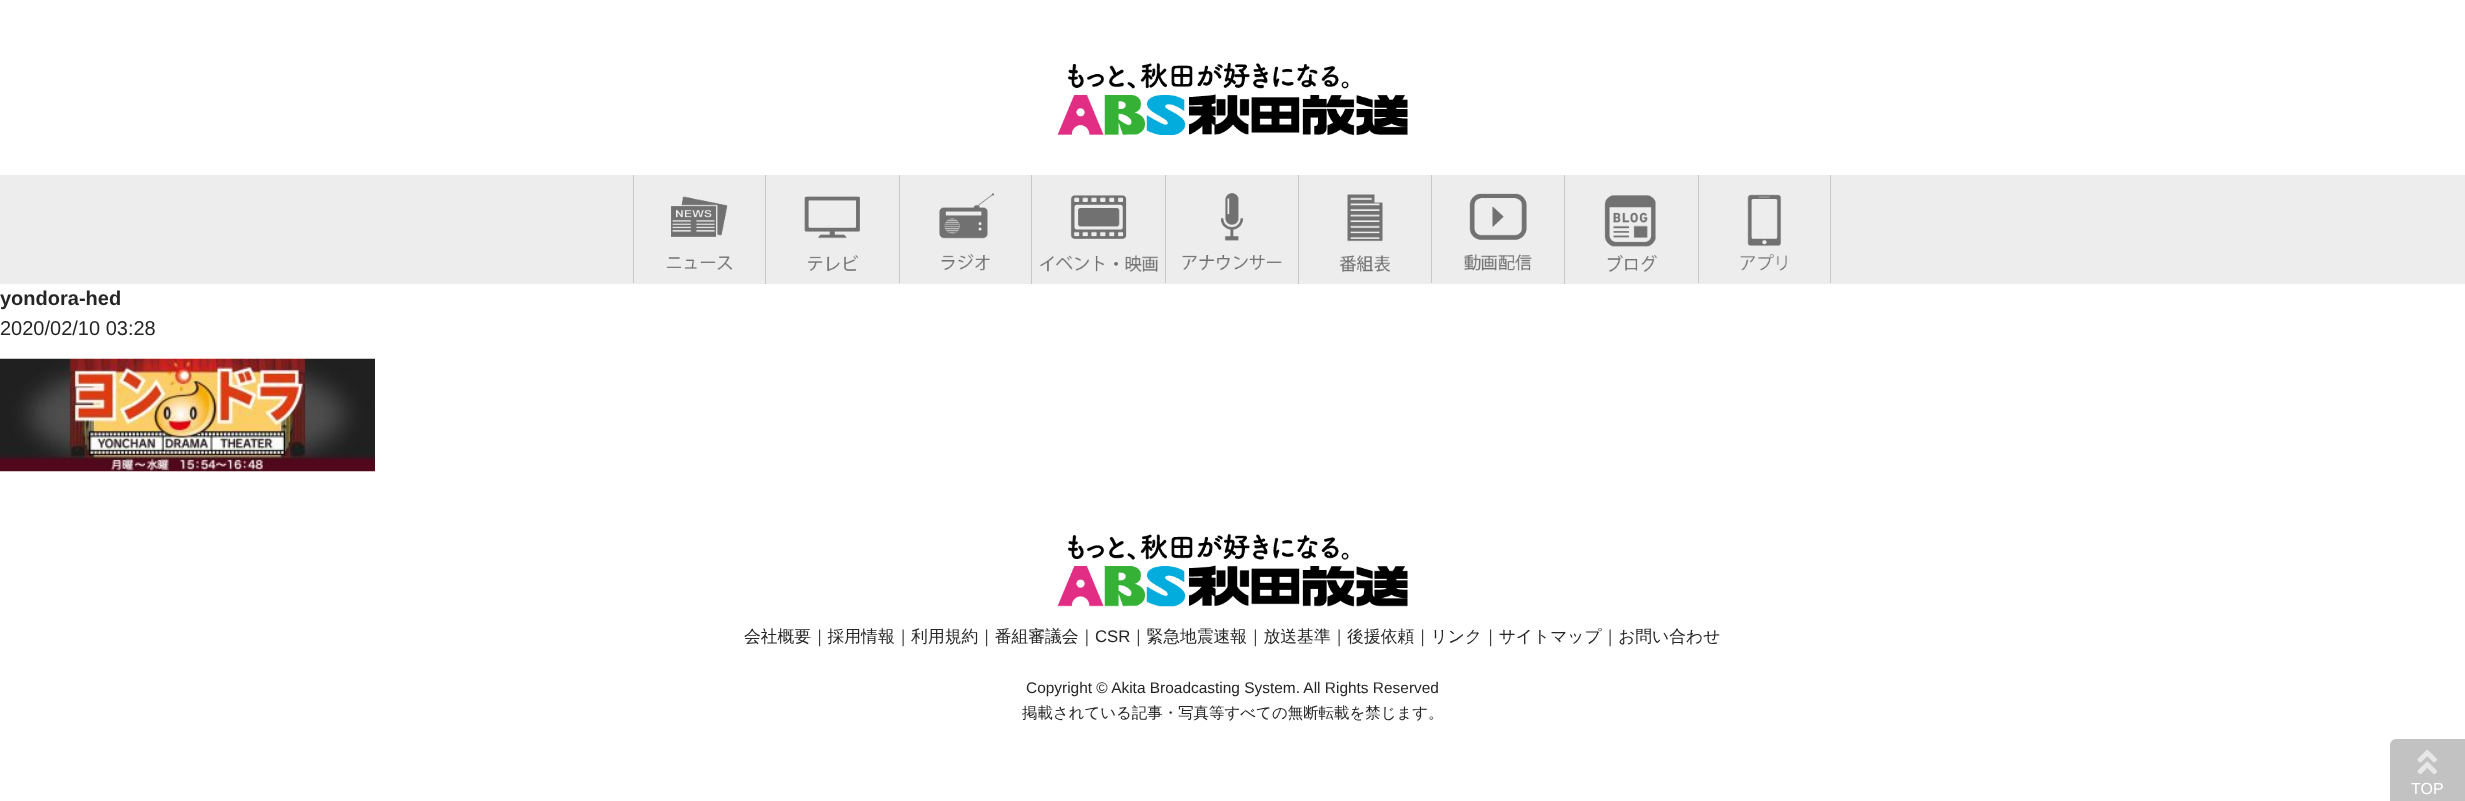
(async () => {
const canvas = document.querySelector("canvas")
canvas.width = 2465
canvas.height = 801
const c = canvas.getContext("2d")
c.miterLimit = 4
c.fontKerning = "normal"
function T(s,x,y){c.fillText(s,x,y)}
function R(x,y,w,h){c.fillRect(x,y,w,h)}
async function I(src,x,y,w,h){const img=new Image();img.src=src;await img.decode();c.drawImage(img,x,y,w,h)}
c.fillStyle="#fff"
R(0,0,2465,801)
await I("1.png",1057,62,351,73)
c.fillStyle="#ededed"
R(0,175,2465,109)
c.fillStyle="#c8c9ca"
R(633,175,1,108)
await I("2.png",666,196,67,74)
R(765,175,1,109)
await I("3.png",804,196,56,76)
R(899,175,1,108)
await I("4.png",939,193,55,78)
R(1031,175,1,109)
await I("5.png",1040,195,119,77)
R(1165,175,1,108)
await I("6.png",1182,193,100,78)
R(1298,175,1,109)
await I("7.png",1339,194,52,79)
R(1431,175,1,108)
await I("8.png",1464,193,68,78)
R(1564,175,1,109)
await I("9.png",1604,195,53,77)
R(1830,175,1,108)
R(1698,175,1,108)
await I("10.png",1740,194,47,77)
c.font="bold 20px Liberation Sans"
c.fillStyle="#252525"
T("yondora-hed",0,305)
c.font="20px Liberation Sans"
T("2020/02/10 03:28",0,335)
await I("11.png",0,358,375,114)
await I("12.png",1057,533,351,74)
c.font="500 16.8px WenQuanYi Zen Hei"
T("会社概要｜採用情報｜利用規約｜番組審議会｜",744,642)
c.font="16.8px Liberation Sans"
T("CSR",1095,642)
c.font="500 16.8px WenQuanYi Zen Hei"
T("｜緊急地震速報｜放送基準｜後援依頼｜リンク｜サイトマップ｜お問い合わせ",1130,642)
c.font="15.45px Liberation Sans"
T("Copyright © Akita Broadcasting System. All Rights Reserved",1026,693)
c.font="500 15.45px WenQuanYi Zen Hei"
T("掲載されている記事・写真等すべての無断転載を禁じます。",1022,718)
c.fillStyle="#c2c2c2"
c.beginPath()
c.roundRect(2390,739,75,62,[6,0,0,0])
c.fill()
await I("13.png",2417,750,20,25)
c.font="16px Liberation Sans"
c.fillStyle="#fff"
T("TOP",2411,794)
})()
